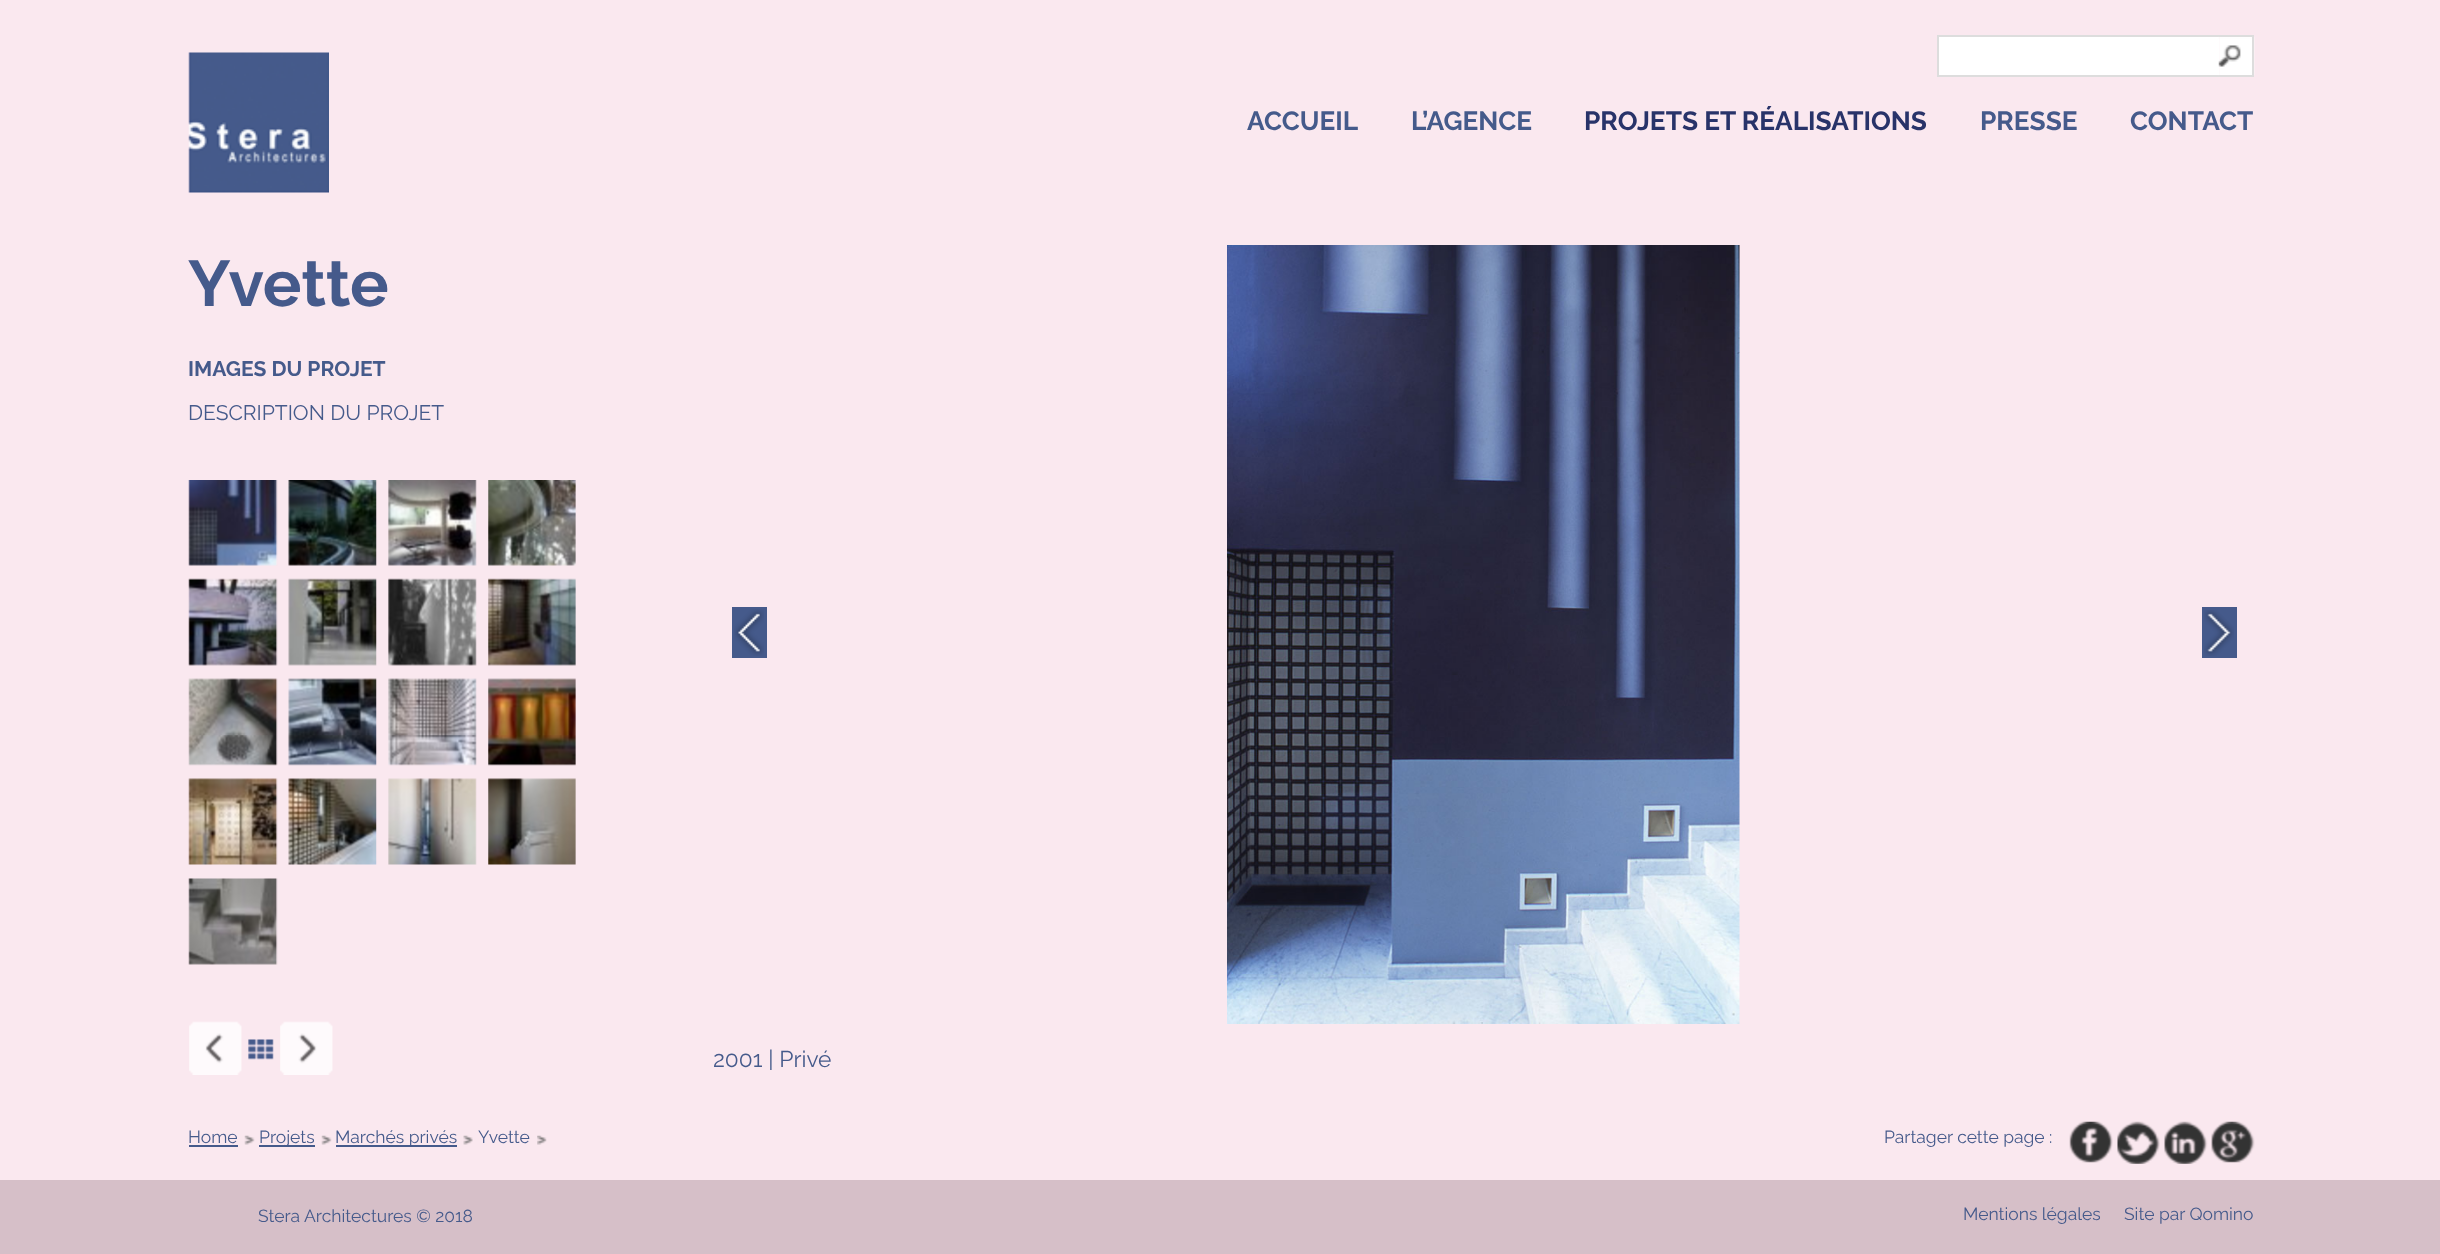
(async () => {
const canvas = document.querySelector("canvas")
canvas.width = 2440
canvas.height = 1254
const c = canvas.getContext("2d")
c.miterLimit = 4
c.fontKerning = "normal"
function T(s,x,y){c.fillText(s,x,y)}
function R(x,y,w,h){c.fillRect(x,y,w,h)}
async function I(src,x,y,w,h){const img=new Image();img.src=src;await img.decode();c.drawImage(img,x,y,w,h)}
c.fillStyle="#fae8ef"
R(0,0,2440,1254)
await I("1.png",188,52,141,141)
c.fillStyle="#fff"
R(1939,37,280,38)
c.fillStyle="#ddd"
R(1937,35,282,2)
R(1937,75,282,2)
R(1937,35,2,42)
await I("2.png",2218,36,37,40)
R(2219,35,35,2)
R(2252,35,2,42)
R(2219,75,35,2)
c.font="bold 26.25px Raleway"
c.fillStyle="#455a8b"
T("ACCUEIL",1247,130)
T("L’AGENCE",1411,130)
c.fillStyle="#283369"
T("PROJETS ET RÉALISATIONS",1584,130)
c.fillStyle="#455a8b"
T("PRESSE",1980,130)
T("CONTACT",2130,130)
c.font="bold 64.5px Raleway"
T("Yvette",188,306)
c.font="bold 21px Raleway"
T("IMAGES DU PROJET",188,376)
c.font="21px Raleway"
T("DESCRIPTION DU PROJET",188,420)
await I("3.png",188,480,90,86)
await I("4.png",288,480,89,86)
await I("5.png",388,480,89,86)
await I("6.png",488,480,88,86)
await I("7.png",188,578,90,88)
await I("8.png",288,578,89,88)
await I("9.png",388,578,89,88)
await I("10.png",488,578,88,88)
await I("11.png",188,678,90,88)
await I("12.png",288,678,89,88)
await I("13.png",388,678,89,88)
await I("14.png",488,678,88,88)
await I("15.png",188,778,90,87)
await I("16.png",288,778,89,87)
await I("17.png",388,778,89,87)
await I("18.png",488,778,88,87)
await I("19.png",188,878,90,87)
await I("20.png",189,1021,53,54)
await I("21.png",248,1039,26,21)
await I("22.png",280,1021,53,54)
R(732,607,35,51)
await I("23.png",734,609,30,47)
await I("24.png",1227,245,513,779)
R(2202,607,35,51)
await I("25.png",2204,610,30,46)
c.font="22.75px Raleway"
T("2001 | Privé",713,1067)
await I("26.png",244,1135,11,10)
c.font="17.5px Raleway"
T("Home",188,1143)
R(189,1145,49,2)
await I("26.png",321,1135,11,10)
R(259,1145,56,2)
T("Projets",259,1143)
await I("27.png",463,1135,10,10)
R(336,1145,121,2)
T("Marchés privés",335,1143)
await I("28.png",537,1135,10,10)
T("Yvette",478,1143)
T("Partager cette page :",1884,1143)
await I("29.png",2069,1121,44,42)
await I("30.png",2117,1121,43,43)
await I("31.png",2164,1121,44,43)
await I("32.png",2211,1121,44,42)
c.fillStyle="#d6bfc8"
R(0,1180,2440,74)
c.fillStyle="#455a8b"
T("Stera Architectures © 2018",258,1222)
T("Mentions légales",1963,1220)
T("Site par Qomino",2124,1220)
})()
